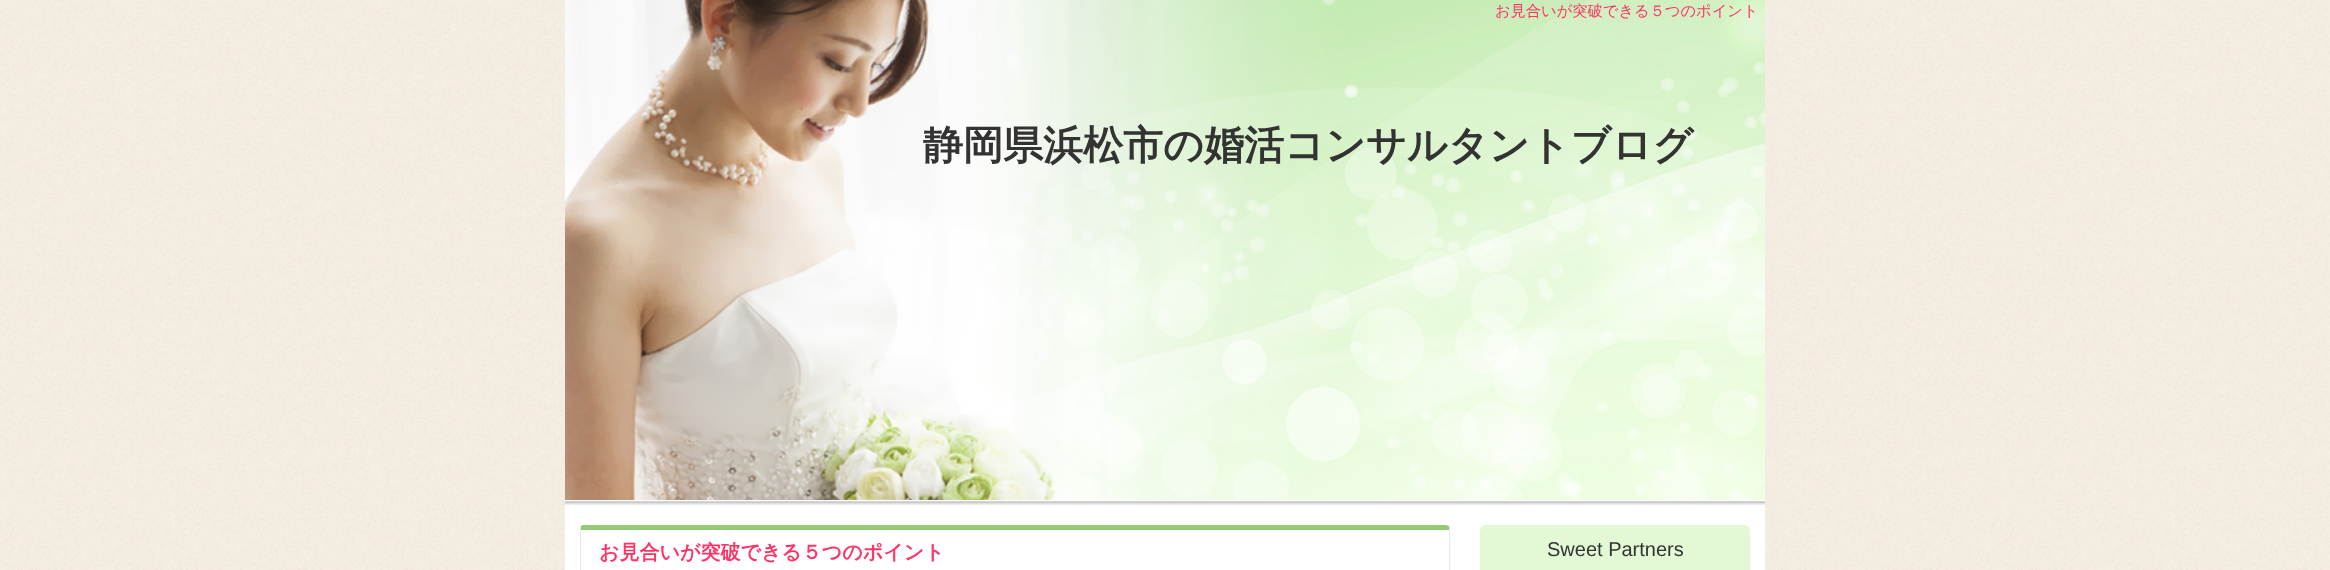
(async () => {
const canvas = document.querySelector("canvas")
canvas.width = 2330
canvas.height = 570
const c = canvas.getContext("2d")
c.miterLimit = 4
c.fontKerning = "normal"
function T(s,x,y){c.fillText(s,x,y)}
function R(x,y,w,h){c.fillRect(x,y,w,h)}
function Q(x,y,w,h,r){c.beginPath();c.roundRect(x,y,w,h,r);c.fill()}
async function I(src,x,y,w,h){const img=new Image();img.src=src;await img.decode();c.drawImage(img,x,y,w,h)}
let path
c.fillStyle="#f5ede2"
R(0,0,2330,570)
await I("1.png",0,0,2330,570)
c.fillStyle="#fff"
R(565,500,1200,70)
await I("2.png",565,0,1200,500)
c.font="500 15.25px WenQuanYi Zen Hei"
c.fillStyle="#f36"
T("お見合いが突破できる５つのポイント",1495,16)
c.font="bold 40px WenQuanYi Zen Hei"
c.fillStyle="#333"
T("静岡県浜松市の婚活コンサルタントブログ",923,159)
await I("3.png",565,501,1200,4)
c.fillStyle="#e7e7e7"
path = new Path2D("M580 529v41c0 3 3 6 6 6h858c3 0 6-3 6-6v-41c0-1 0-2-1-3v44c0 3-2 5-5 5h-858c-3 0-5-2-5-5v-44z")
c.fill(path)
c.fillStyle="#94ca78"
path = new Path2D("M584 525l-3 1v4h868v-4l-3-1z")
c.fill(path)
path = new Path2D("M584 525c-1.5 0-2.5 .5-3 1v4h7v-5z")
c.fill(path)
c.font="bold 20px WenQuanYi Zen Hei"
c.fillStyle="#f36"
T("お見合いが突破できる５つのポイント",599,559)
c.fillStyle="#e3f8d4"
Q(1480,525,270,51,6)
c.font="20px Liberation Sans"
c.fillStyle="#333"
T("Sweet Partners",1547,556)
})()
